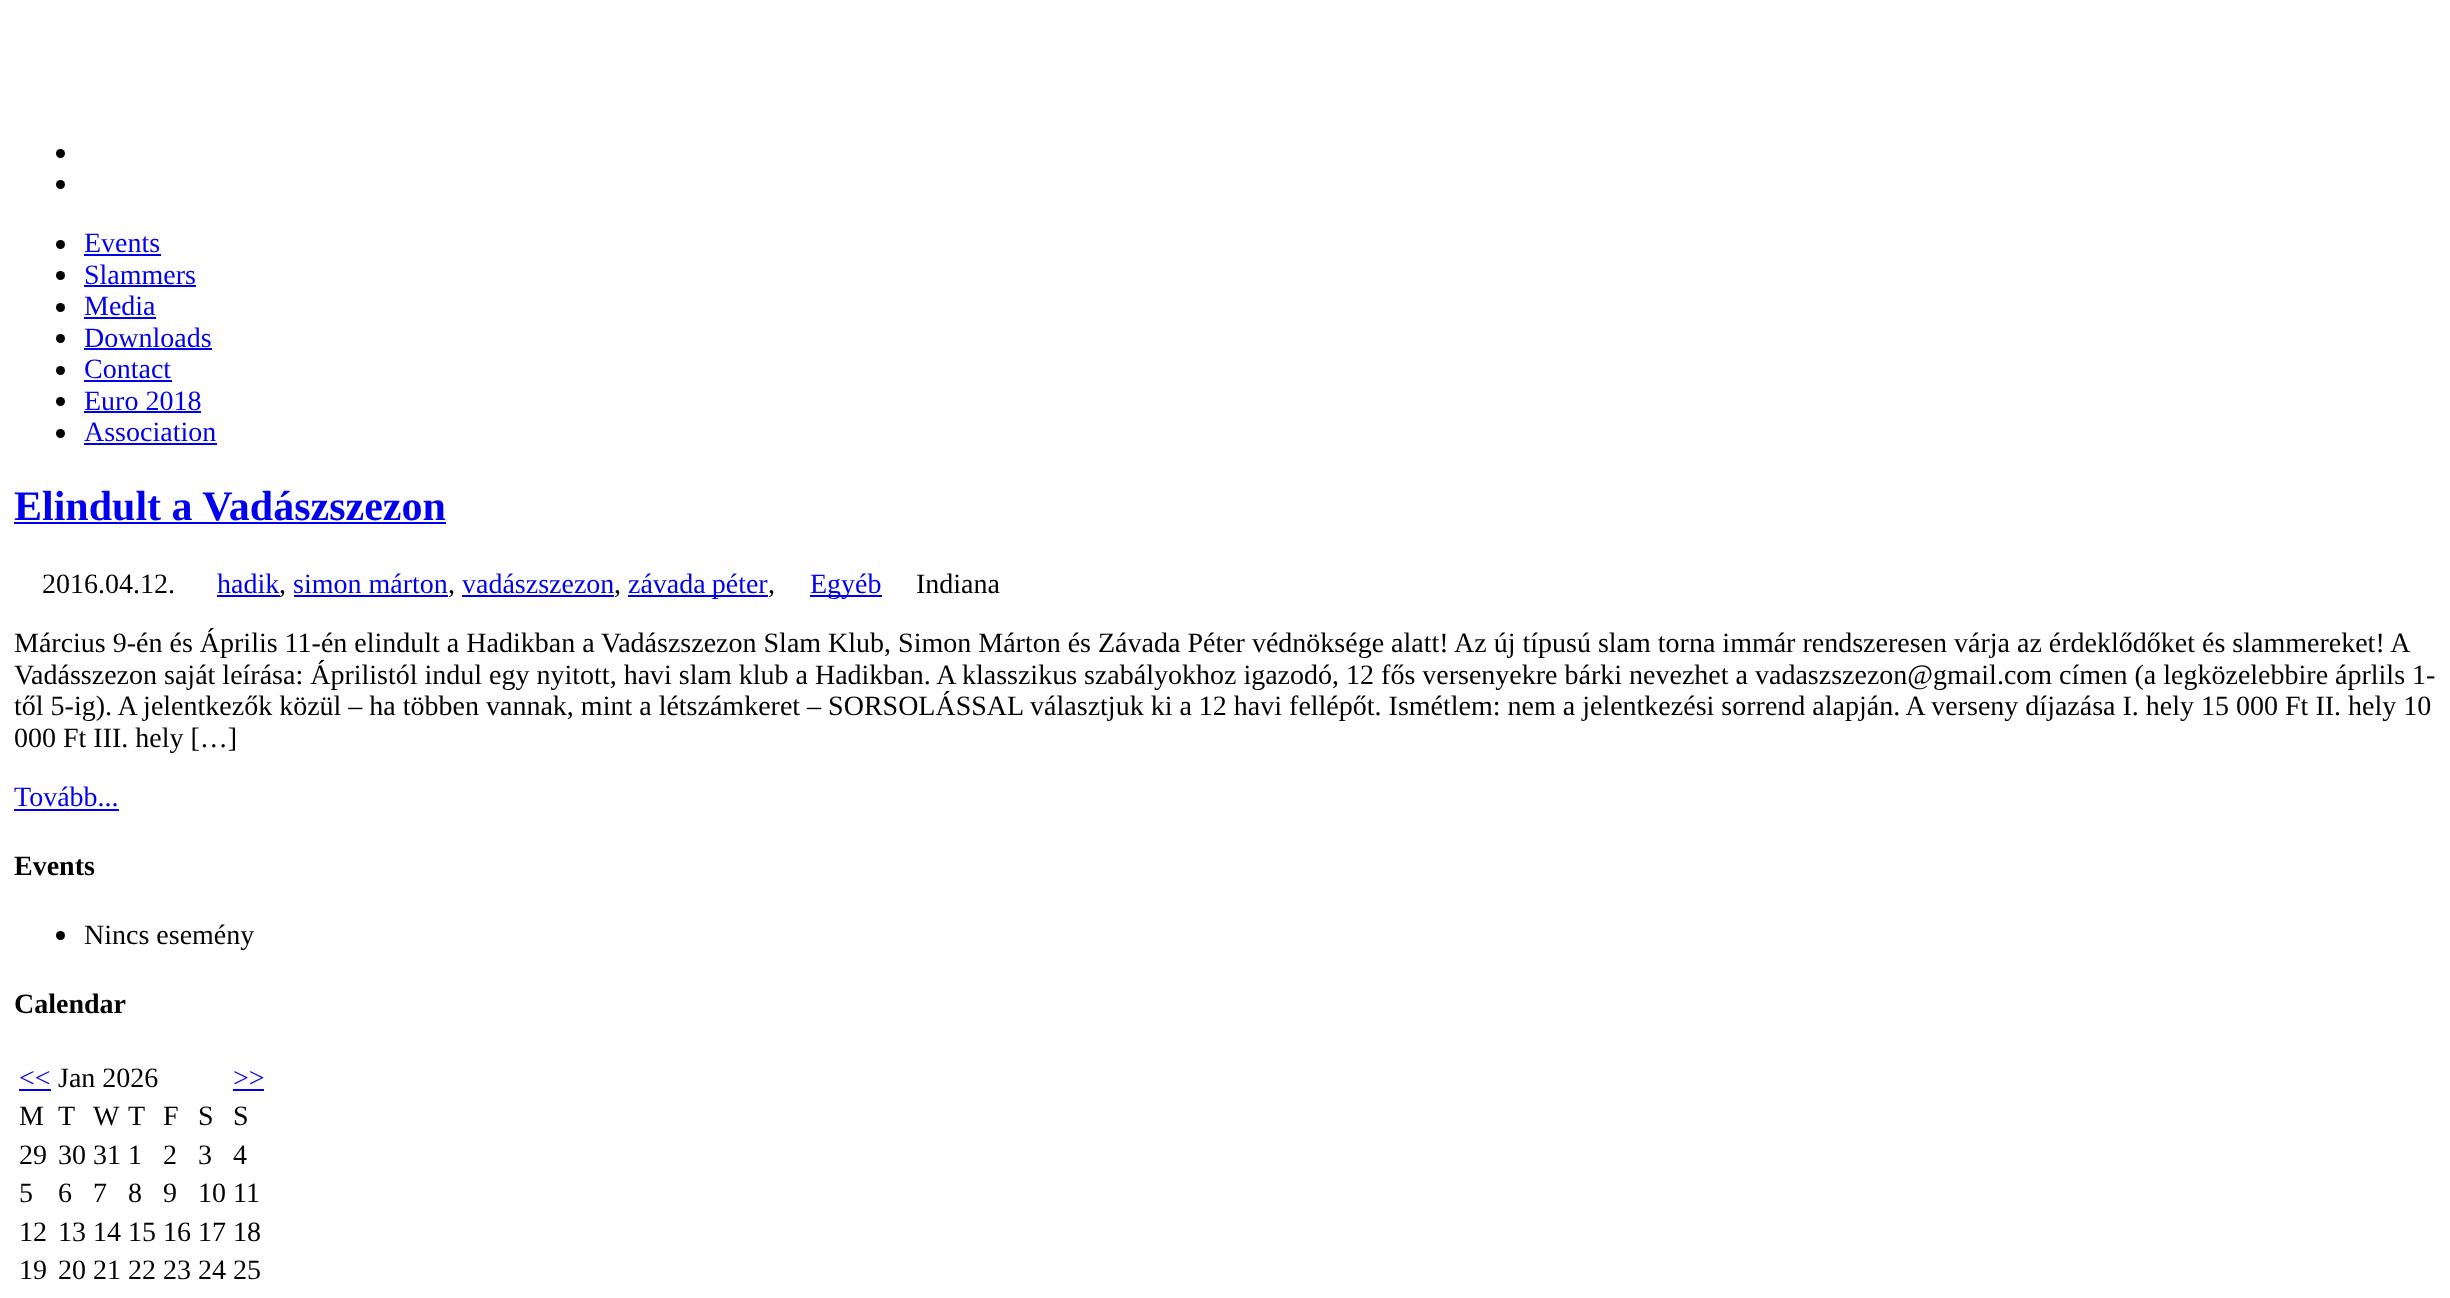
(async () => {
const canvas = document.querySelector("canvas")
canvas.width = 2450
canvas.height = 1298
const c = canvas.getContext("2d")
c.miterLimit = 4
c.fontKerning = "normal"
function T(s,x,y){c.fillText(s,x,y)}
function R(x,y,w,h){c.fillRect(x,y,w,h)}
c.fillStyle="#fff"
R(0,0,2450,1298)
c.fillStyle="#000"
c.beginPath()
c.arc(60.5,153.5,4.5,0,7)
c.fill()
c.beginPath()
c.arc(60.5,184.5,4.5,0,7)
c.fill()
c.beginPath()
c.arc(60.5,244.5,4.5,0,7)
c.fill()
c.font="28px Liberation Serif"
c.fillStyle="#00e"
T("Events",84,252)
R(84,254,77,2)
c.fillStyle="#000"
c.beginPath()
c.arc(60.5,275.5,4.5,0,7)
c.fill()
c.fillStyle="#00e"
T("Slammers",84,284)
R(84,285,112,2)
c.fillStyle="#000"
c.beginPath()
c.arc(60.5,307.5,4.5,0,7)
c.fill()
c.fillStyle="#00e"
T("Media",84,315)
R(84,317,72,2)
c.fillStyle="#000"
c.beginPath()
c.arc(60.5,338.5,4.5,0,7)
c.fill()
c.fillStyle="#00e"
T("Downloads",84,347)
R(84,348,128,2)
c.fillStyle="#000"
c.beginPath()
c.arc(60.5,370.5,4.5,0,7)
c.fill()
c.fillStyle="#00e"
T("Contact",84,378)
R(84,380,88,2)
c.fillStyle="#000"
c.beginPath()
c.arc(60.5,401.5,4.5,0,7)
c.fill()
c.fillStyle="#00e"
T("Euro 2018",84,410)
R(84,411,117,2)
c.fillStyle="#000"
c.beginPath()
c.arc(60.5,433.5,4.5,0,7)
c.fill()
c.fillStyle="#00e"
T("Association",84,441)
R(84,443,133,2)
c.font="bold 42px Liberation Serif"
T("Elindult a Vadászszezon",14,520)
R(14,522,432,2)
c.font="28px Liberation Serif"
c.fillStyle="#000"
T("2016.04.12.",42,593)
c.fillStyle="#00e"
T("hadik",217,593)
R(217,595,63,2)
c.fillStyle="#000"
T(",",279,593)
c.fillStyle="#00e"
T("simon márton",293,593)
R(294,595,154,2)
c.fillStyle="#000"
T(",",448,593)
c.fillStyle="#00e"
T("vadászszezon",462,593)
R(462,595,152,2)
c.fillStyle="#000"
T(",",614,593)
c.fillStyle="#00e"
R(628,595,140,2)
c.wordSpacing="-1px"
T("závada péter",628,593)
c.wordSpacing="0px"
c.fillStyle="#000"
T(",",768,593)
c.fillStyle="#00e"
R(810,595,72,2)
T("Egyéb",810,593)
c.fillStyle="#000"
T("Indiana",916,593)
T("Március 9-én és Április 11-én elindult a Hadikban a Vadászszezon Slam Klub, Simon Márton és Závada Péter védnöksége alatt! Az új típusú slam torna immár rendszeresen várja az érdeklődőket és slammereket! A",14,652)
T("Vadásszezon saját leírása: Áprilistól indul egy nyitott, havi slam klub a Hadikban. A klasszikus szabályokhoz igazodó, 12 fős versenyekre bárki nevezhet a vadaszszezon@gmail.com címen (a legközelebbire áprlils 1-",14,684)
T("től 5-ig). A jelentkezők közül – ha többen vannak, mint a létszámkeret – SORSOLÁSSAL választjuk ki a 12 havi fellépőt. Ismétlem: nem a jelentkezési sorrend alapján. A verseny díjazása I. hely 15 000 Ft II. hely 10",14,715)
T("000 Ft III. hely […]",14,747)
c.fillStyle="#00e"
T("Tovább...",14,806)
R(14,809,105,2)
c.font="bold 28px Liberation Serif"
c.fillStyle="#000"
T("Events",14,875)
c.beginPath()
c.arc(60.5,935.5,4.5,0,7)
c.fill()
c.font="28px Liberation Serif"
T("Nincs esemény",84,944)
c.font="bold 28px Liberation Serif"
T("Calendar",14,1013)
c.font="28px Liberation Serif"
c.fillStyle="#00e"
T("<<",19,1087)
R(19,1089,32,2)
c.fillStyle="#000"
T("Jan 2026",58,1087)
c.fillStyle="#00e"
T(">>",233,1087)
R(233,1089,31,2)
c.fillStyle="#000"
T("M",19,1125)
T("T",58,1125)
T("W",93,1125)
T("T",128,1125)
T("F",163,1125)
T("S",198,1125)
T("S",233,1125)
T("29",19,1164)
T("30 31 1",58,1164)
T("2",163,1164)
T("3",198,1164)
T("4",233,1164)
T("5",19,1202)
T("6",58,1202)
T("7",93,1202)
T("8",128,1202)
T("9",163,1202)
T("10 11",198,1202)
T("12",19,1241)
T("13 14 15 16 17 18",58,1241)
T("19",19,1279)
T("20 21 22 23 24 25",58,1279)
})()
